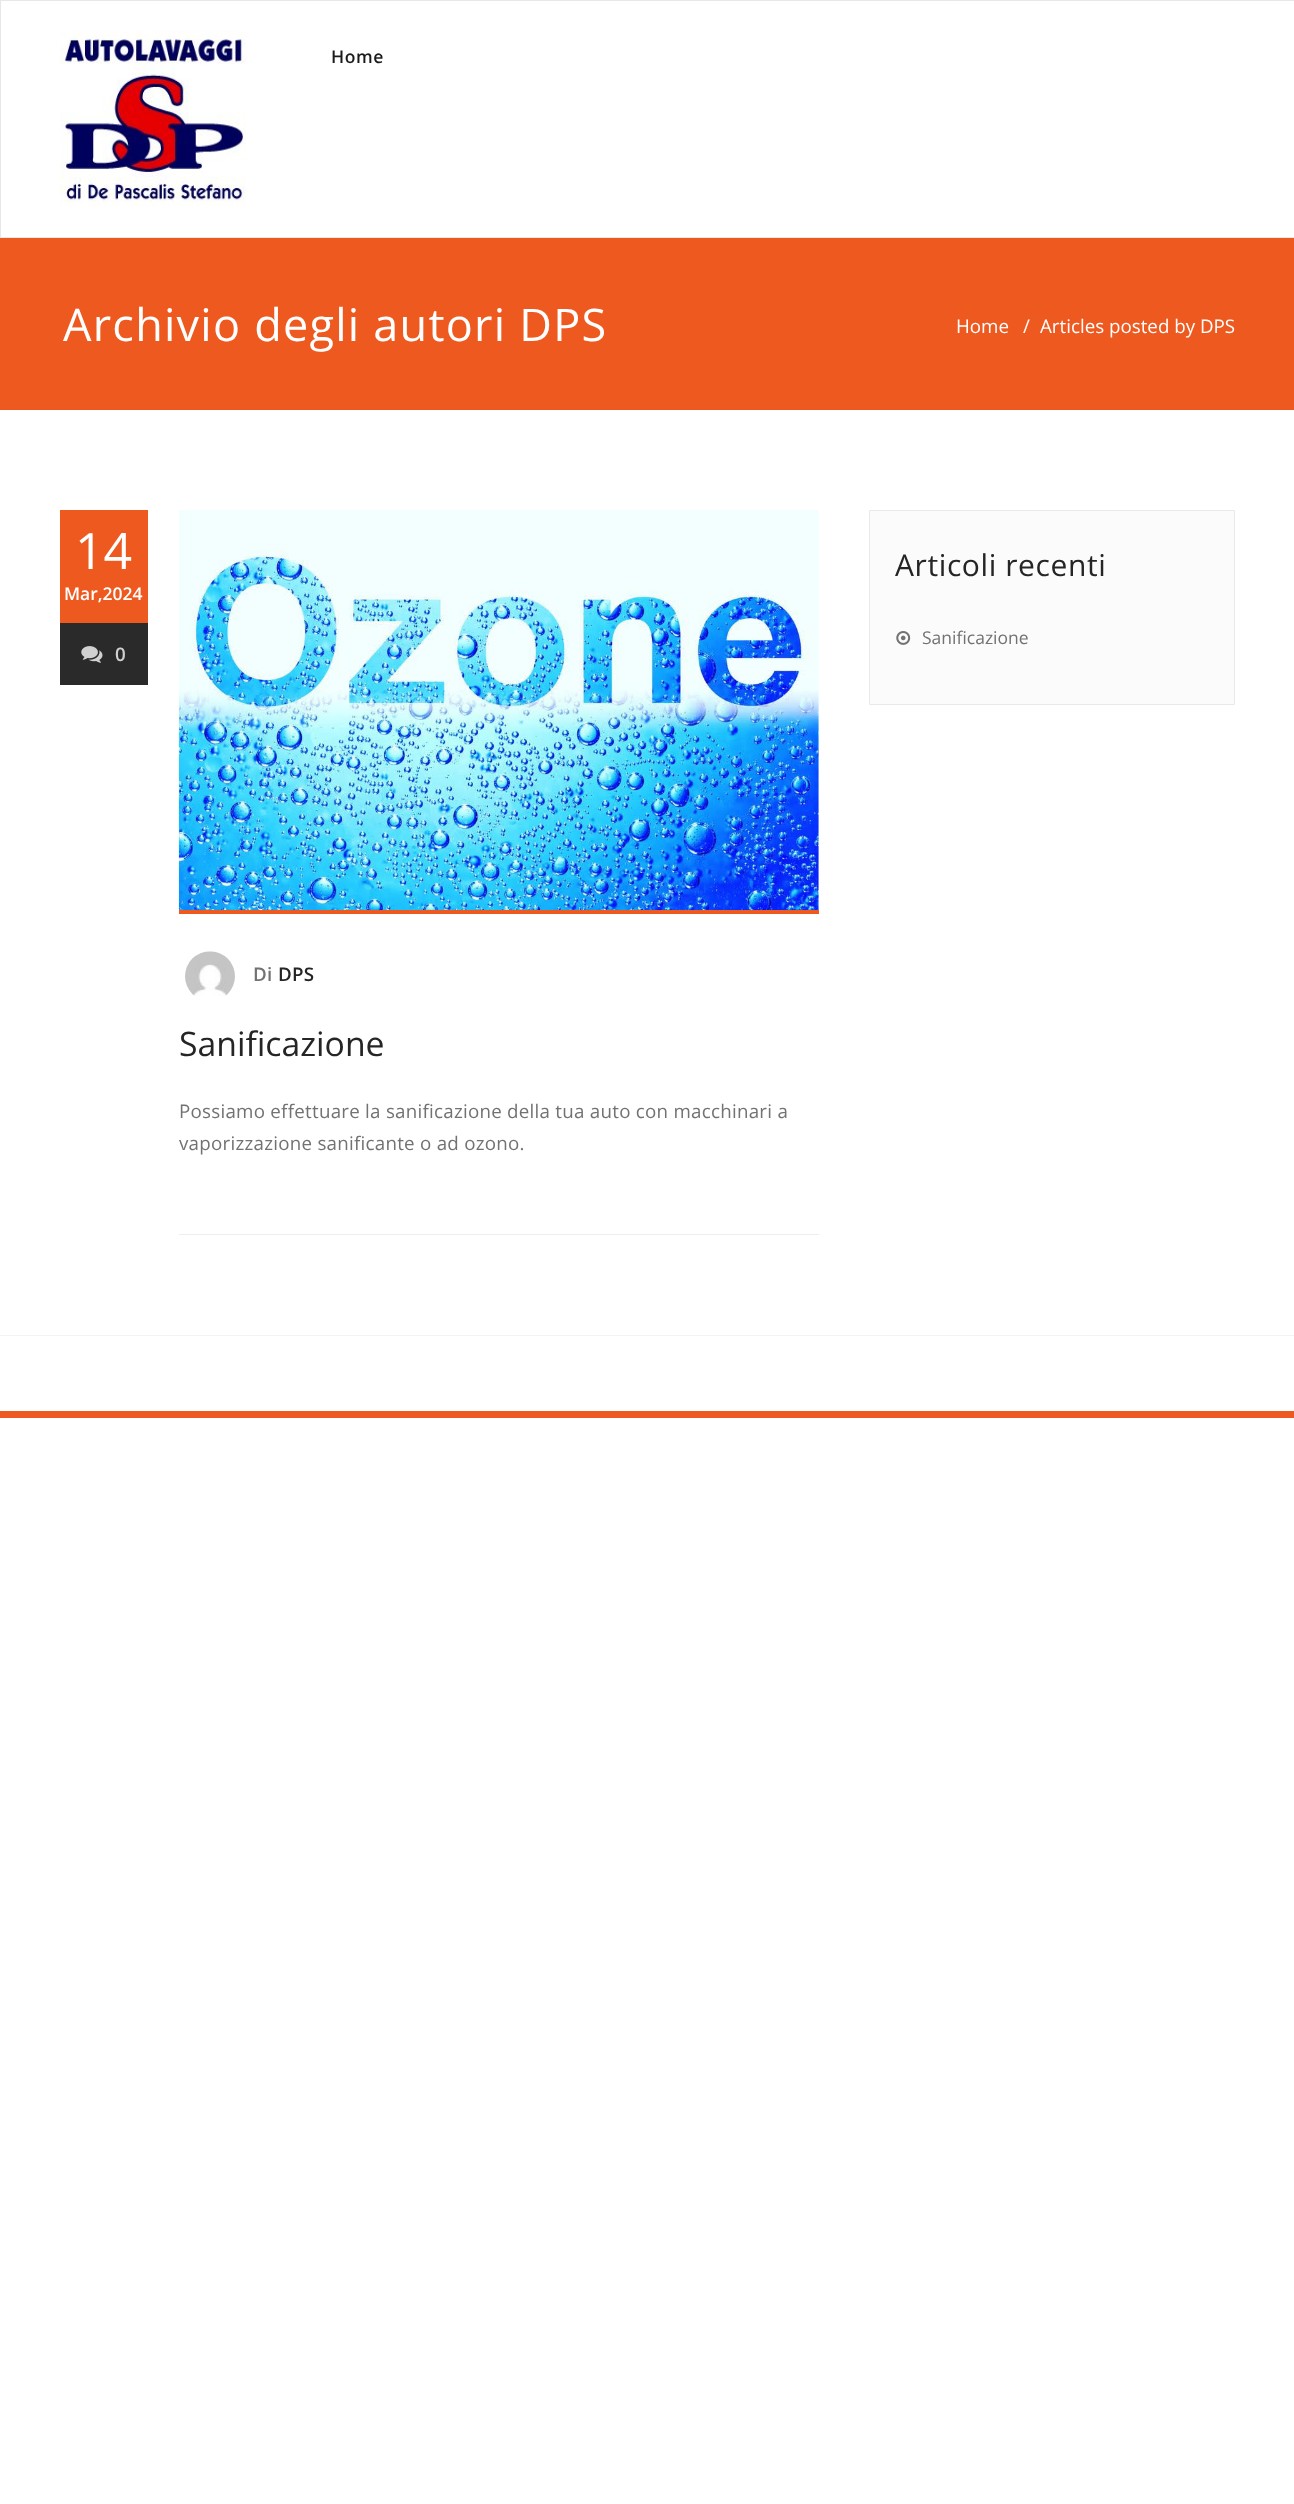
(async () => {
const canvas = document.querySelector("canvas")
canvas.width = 1294
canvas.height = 2504
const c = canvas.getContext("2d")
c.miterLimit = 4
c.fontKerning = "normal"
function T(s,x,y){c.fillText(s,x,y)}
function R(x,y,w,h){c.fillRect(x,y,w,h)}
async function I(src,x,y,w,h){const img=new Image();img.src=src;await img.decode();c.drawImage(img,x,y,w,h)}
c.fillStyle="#fff"
R(0,0,1294,2504)
c.strokeStyle="#e7e7e7"
c.strokeRect(.5,.5,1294,237)
await I("1.png",60,31,186,176)
c.letterSpacing="0.6px"
c.font="600 17.5px Open Sans"
c.fillStyle="#1b1b1b"
T("Home",331,63)
c.fillStyle="#ee591f"
R(0,238,1294,172)
c.letterSpacing="1.25px"
c.font="45px Open Sans"
c.fillStyle="#fff"
T("Archivio degli autori DPS",63,341)
c.letterSpacing="0px"
c.font="18.75px Open Sans"
T("Home",956,333)
T("/",1023,333)
T("Articles posted by DPS",1040,333)
c.fillStyle="#ee591f"
R(60,510,88,113)
c.font="50px Open Sans"
c.fillStyle="#fff"
T("14",75,569)
c.font="600 17.5px Open Sans"
T("Mar,2024",64,600)
c.fillStyle="#2a2a2a"
R(60,623,88,62)
await I("2.png",81,646,22,17)
c.font="600 18.75px Open Sans"
c.fillStyle="#d0d0d0"
T("0",115,661)
c.fillStyle="#eee"
R(179,1234,640,1)
c.fillStyle="#ee591f"
R(179,910,640,4)
await I("3.png",178,510,641,400)
await I("4.png",185,951,50,45)
c.letterSpacing="0.25px"
c.fillStyle="#727272"
T("Di",253,981)
c.fillStyle="#242526"
T("DPS",278,981)
c.letterSpacing="0px"
c.font="33.75px Open Sans"
T("Sanificazione",179,1056)
c.letterSpacing="0.25px"
c.font="18.75px Open Sans"
c.fillStyle="#727272"
T("Possiamo effettuare la sanificazione della tua auto con macchinari a",179,1118)
T("vaporizzazione sanificante o ad ozono.",179,1150)
c.fillStyle="#fbfbfb"
c.beginPath()
c.rect(869.5,510.5,365,194)
c.fill()
c.strokeStyle="#e9e9e9"
c.stroke()
c.letterSpacing="0.6px"
c.font="30px Open Sans"
c.fillStyle="#242526"
T("Articoli recenti",895,576)
await I("5.png",896,631,15,14)
c.letterSpacing="0px"
c.font="17.5px Open Sans"
c.fillStyle="#727272"
T("Sanificazione",922,644)
c.fillStyle="#f4f4f4"
R(0,1335,1294,1)
c.fillStyle="#ee591f"
R(0,1411,1294,7)
})()
